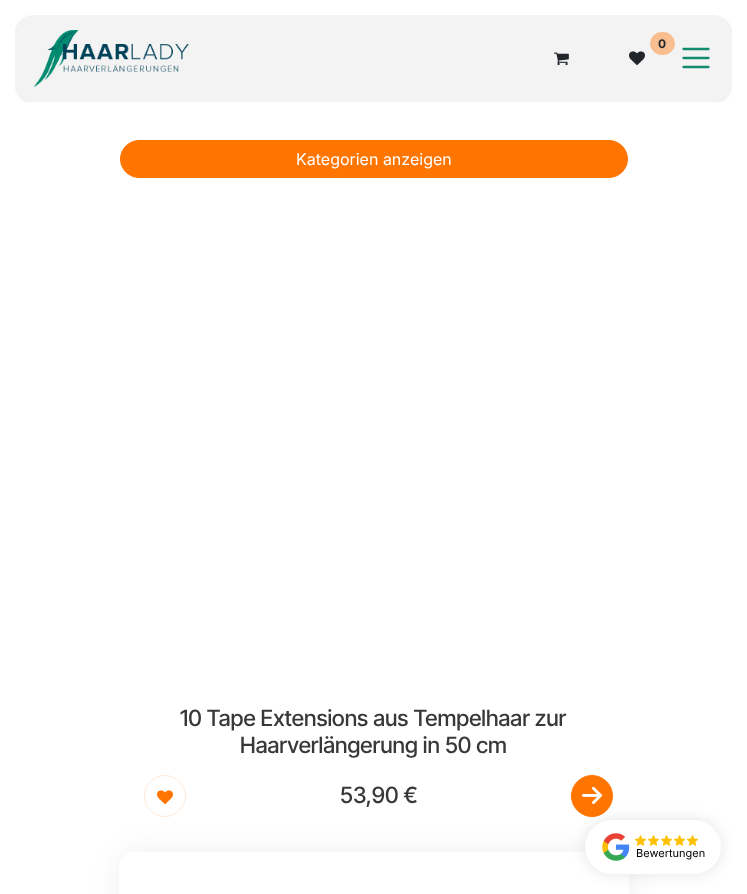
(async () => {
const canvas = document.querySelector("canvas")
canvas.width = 747
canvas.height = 894
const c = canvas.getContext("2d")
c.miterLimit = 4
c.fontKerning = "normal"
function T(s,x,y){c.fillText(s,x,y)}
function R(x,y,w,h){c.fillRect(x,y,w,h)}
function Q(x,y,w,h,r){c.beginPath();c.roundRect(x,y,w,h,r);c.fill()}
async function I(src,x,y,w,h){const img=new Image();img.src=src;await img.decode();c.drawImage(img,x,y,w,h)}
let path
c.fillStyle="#fff"
R(0,0,747,894)
c.save()
c.beginPath()
c.rect(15,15,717,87)
c.clip()
c.fillStyle="#0000001a"
c.filter="blur(1.5px)"
c.beginPath()
c.roundRect(15,16,717,87,20)
c.fill()
c.filter="none"
c.restore()
c.fillStyle="#f3f3f3"
Q(15,15,717,87,20)
await I("1.png",34,30,155,57)
c.fillStyle="#f9be8f"
c.beginPath()
c.roundRect(650.5,32.5,24,22,11)
c.fill()
c.strokeStyle="#f9be8f"
c.stroke()
c.font="bold 12px Inter"
c.fillStyle="#212529"
T("0",658,48)
await I("2.png",629,51,16,15)
await I("3.png",554,52,15,14)
path = new Path2D("M683.5 49h25m-25 9h25m-25 9h25")
c.strokeStyle="#128a70"
c.lineWidth=2.3
c.lineCap="round"
c.stroke(path)
c.fillStyle="#ff7500"
c.beginPath()
c.roundRect(120.5,140.5,507,37,18.5)
c.fill()
c.strokeStyle="#ff7500"
c.lineWidth=1
c.stroke()
c.font="16px Inter"
c.fillStyle="#fff"
T("Kategorien anzeigen",296,165)
c.font="500 22.4px Inter Tight"
c.fillStyle="#383838"
T("10 Tape Extensions aus Tempelhaar zur",180,726)
T("Haarverlängerung in 50 cm",240,753)
c.beginPath()
c.arc(165,796,20.5,0,7)
c.strokeStyle="#ffead9"
c.stroke()
await I("4.png",157,790,16,15)
T("53,90 €",340,803)
c.fillStyle="#ff7500"
c.beginPath()
c.arc(592,796,20.5,0,7)
c.fill()
c.strokeStyle="#ff7500"
c.stroke()
await I("5.png",582,786,20,18)
c.fillStyle="#0000000f"
c.filter="blur(15px)"
c.beginPath()
c.roundRect(119,852,510,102,15)
c.fill()
c.filter="none"
c.fillStyle="#fff"
Q(119,852,510,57,15)
c.fillStyle="#0000001a"
c.filter="blur(7.5px)"
c.beginPath()
c.roundRect(585,820,136,54,27)
c.fill()
c.filter="none"
c.fillStyle="#fff"
Q(585,820,136,54,27)
await I("6.png",602,833,28,28)
await I("7.png",635,835,11,11)
await I("7.png",648,835,11,11)
await I("7.png",661,835,11,11)
await I("7.png",674,835,11,11)
await I("7.png",687,835,11,11)
c.font="11px Inter"
c.fillStyle="#000"
T("Bewertungen",636,857)
})()
